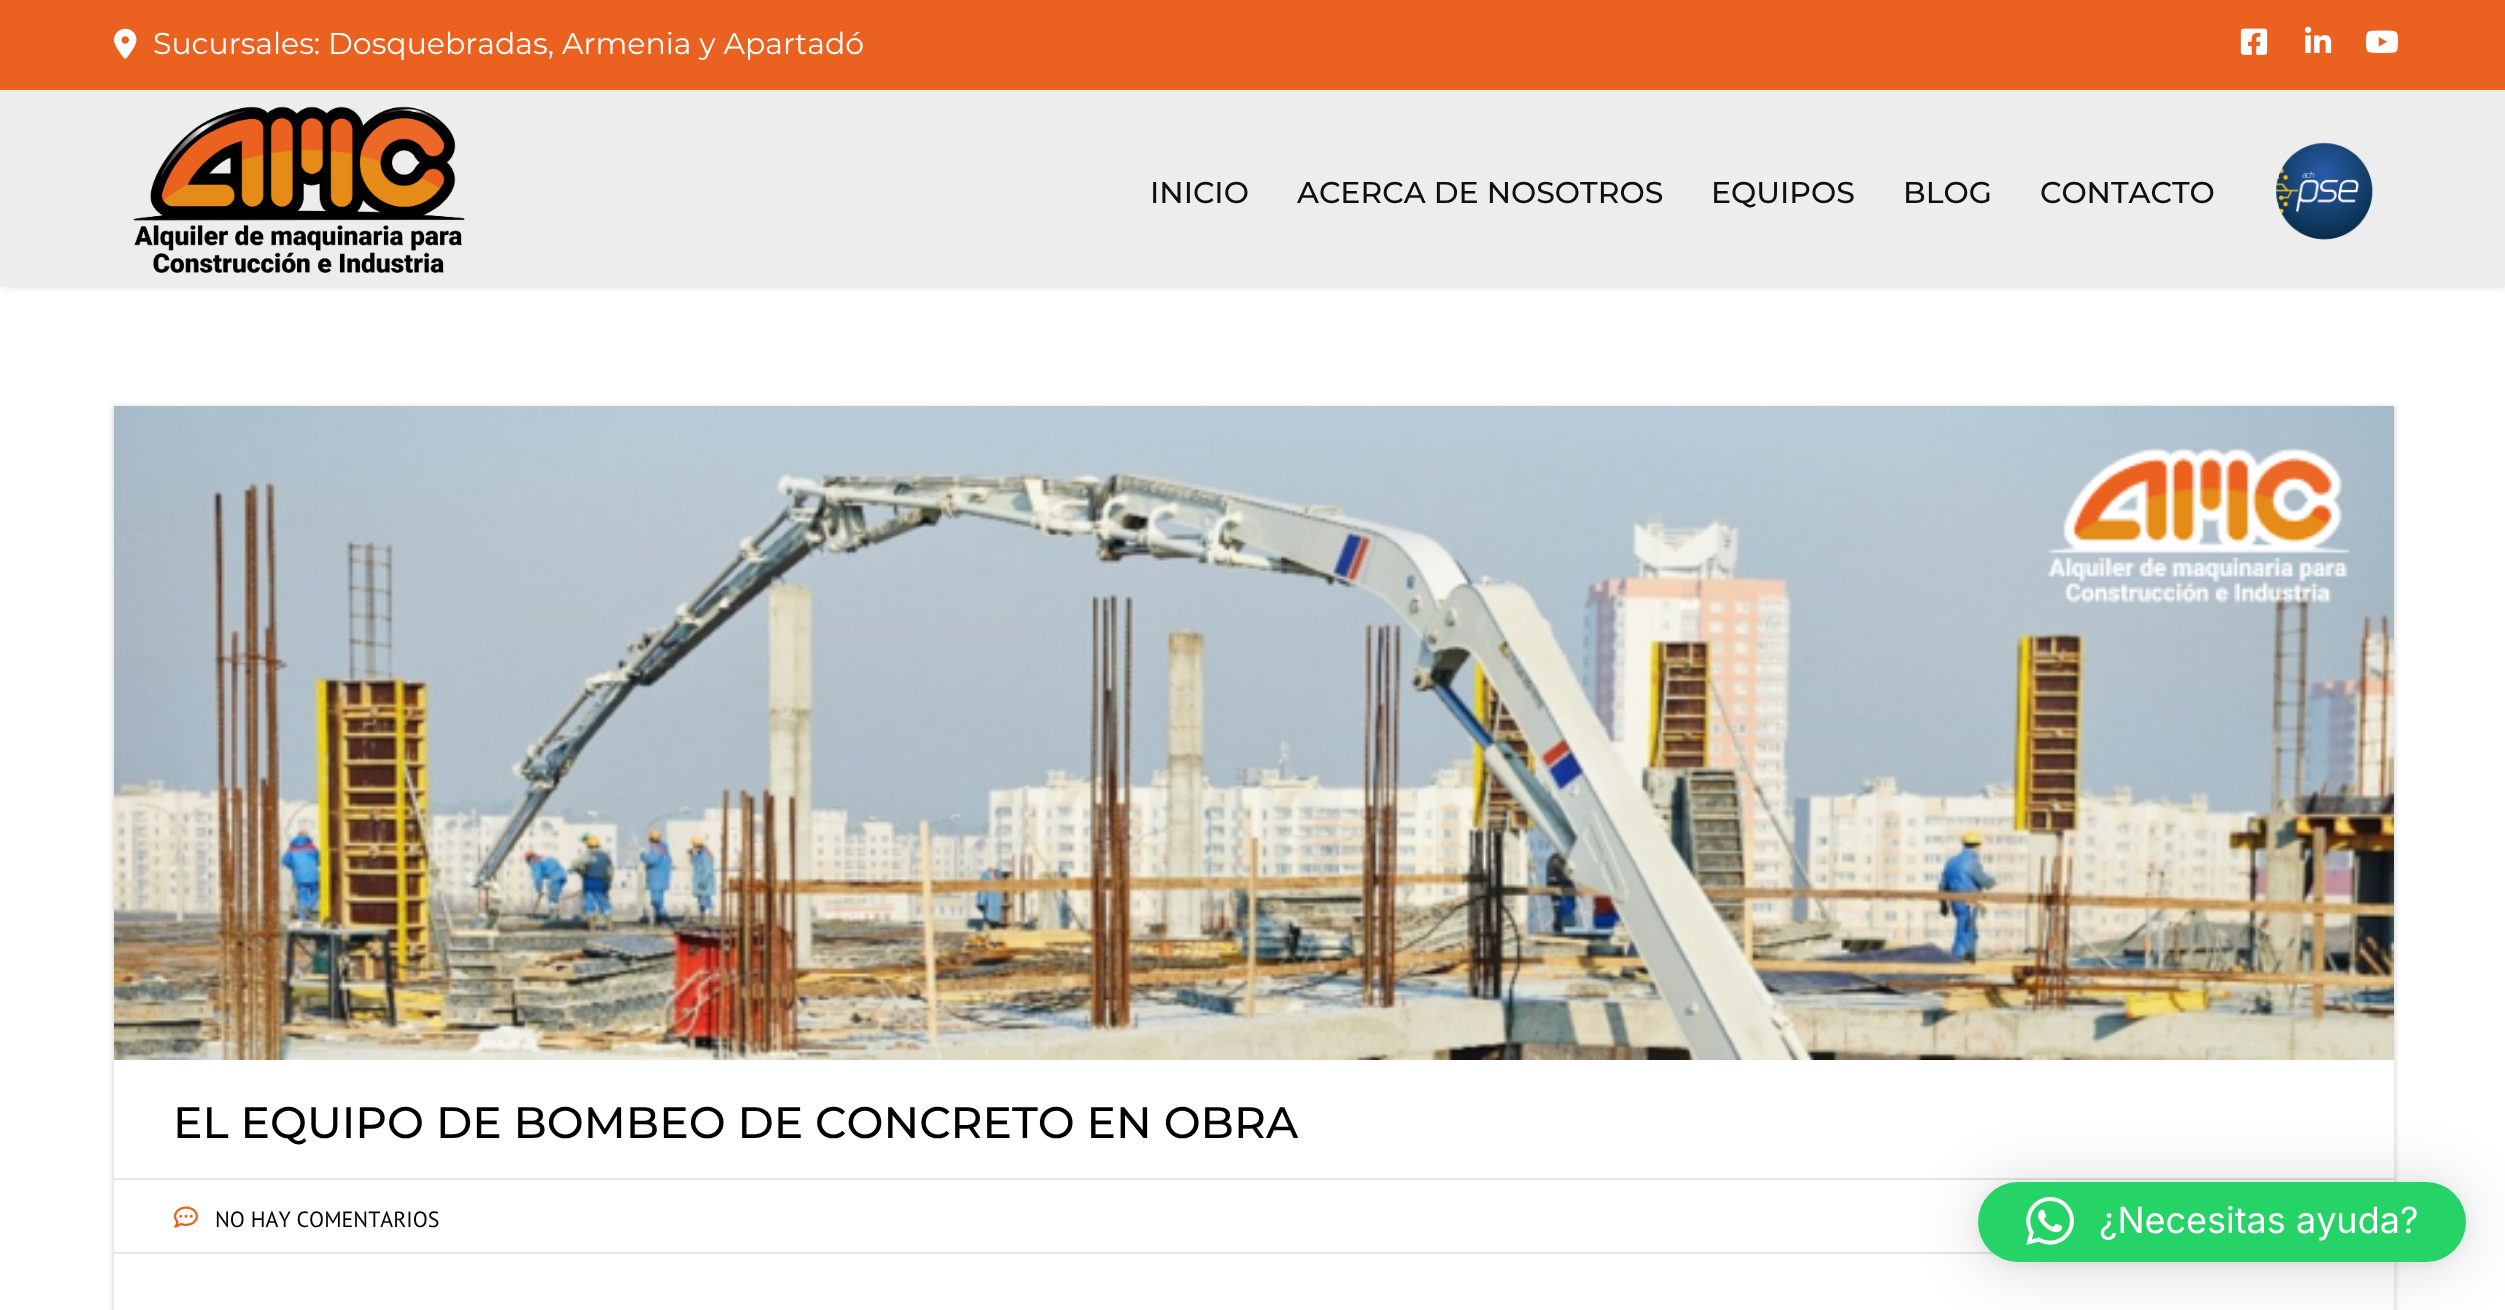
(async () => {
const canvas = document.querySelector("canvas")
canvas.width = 2505
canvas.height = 1310
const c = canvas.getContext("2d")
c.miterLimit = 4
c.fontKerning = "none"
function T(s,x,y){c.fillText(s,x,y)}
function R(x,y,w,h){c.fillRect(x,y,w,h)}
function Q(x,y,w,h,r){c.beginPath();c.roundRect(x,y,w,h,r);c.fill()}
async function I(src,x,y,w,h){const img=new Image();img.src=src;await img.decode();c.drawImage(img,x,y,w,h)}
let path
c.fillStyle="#fff"
R(0,0,2505,1310)
c.fillStyle="#00000026"
c.filter="blur(4px)"
c.beginPath()
c.rect(2,90,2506,196)
c.fill()
c.filter="none"
c.fillStyle="#ea6120"
R(0,0,2505,90)
await I("1.png",114,28,23,31)
c.font="30px Montserrat"
c.fillStyle="#fff"
T("Sucursales: Dosquebradas, Armenia y Apartadó",153,54)
await I("2.png",2240,28,28,27)
await I("3.png",2304,26,28,27)
await I("4.png",2366,30,32,23)
c.fillStyle="#ededed"
R(0,90,2505,196)
await I("5.png",133,106,332,167)
c.font="500 30px Montserrat"
c.fillStyle="#0f0f0f"
T("INICIO",1150,203)
T("ACERCA DE NOSOTROS",1297,203)
T("EQUIPOS",1711,203)
T("BLOG",1903,203)
T("CONTACTO",2040,203)
await I("6.png",2276,142,97,98)
c.save()
path = new Path2D("M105 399h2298v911h-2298zm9 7h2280v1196h-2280z")
c.clip(path,"evenodd")
c.fillStyle="#0000001f"
c.filter="blur(2px)"
c.beginPath()
c.rect(112,406,2284,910)
c.fill()
c.filter="none"
c.restore()
await I("7.png",114,406,2280,654)
c.font="500 44px Montserrat"
c.fillStyle="#000"
T("EL EQUIPO DE BOMBEO DE CONCRETO EN OBRA",173,1138)
c.fillStyle="#e5e5e5"
R(114,1178,2280,2)
R(114,1252,1880,2)
await I("8.png",174,1206,24,22)
c.font="22px PT Sans"
c.fillStyle="#000"
T("NO HAY COMENTARIOS",215,1227)
c.fillStyle="#00000029"
c.filter="blur(32px)"
c.beginPath()
c.roundRect(1978,1186,488,80,40)
c.fill()
c.filter="none"
c.fillStyle="#0000000f"
c.filter="blur(6px)"
c.beginPath()
c.roundRect(1978,1184,488,80,40)
c.fill()
c.filter="none"
c.fillStyle="#25d366"
Q(1978,1182,488,80,40)
await I("9.png",2026,1197,48,48)
c.font="36px Inter"
c.fillStyle="#fff"
T("¿Necesitas ayuda?",2099,1233)
})()
